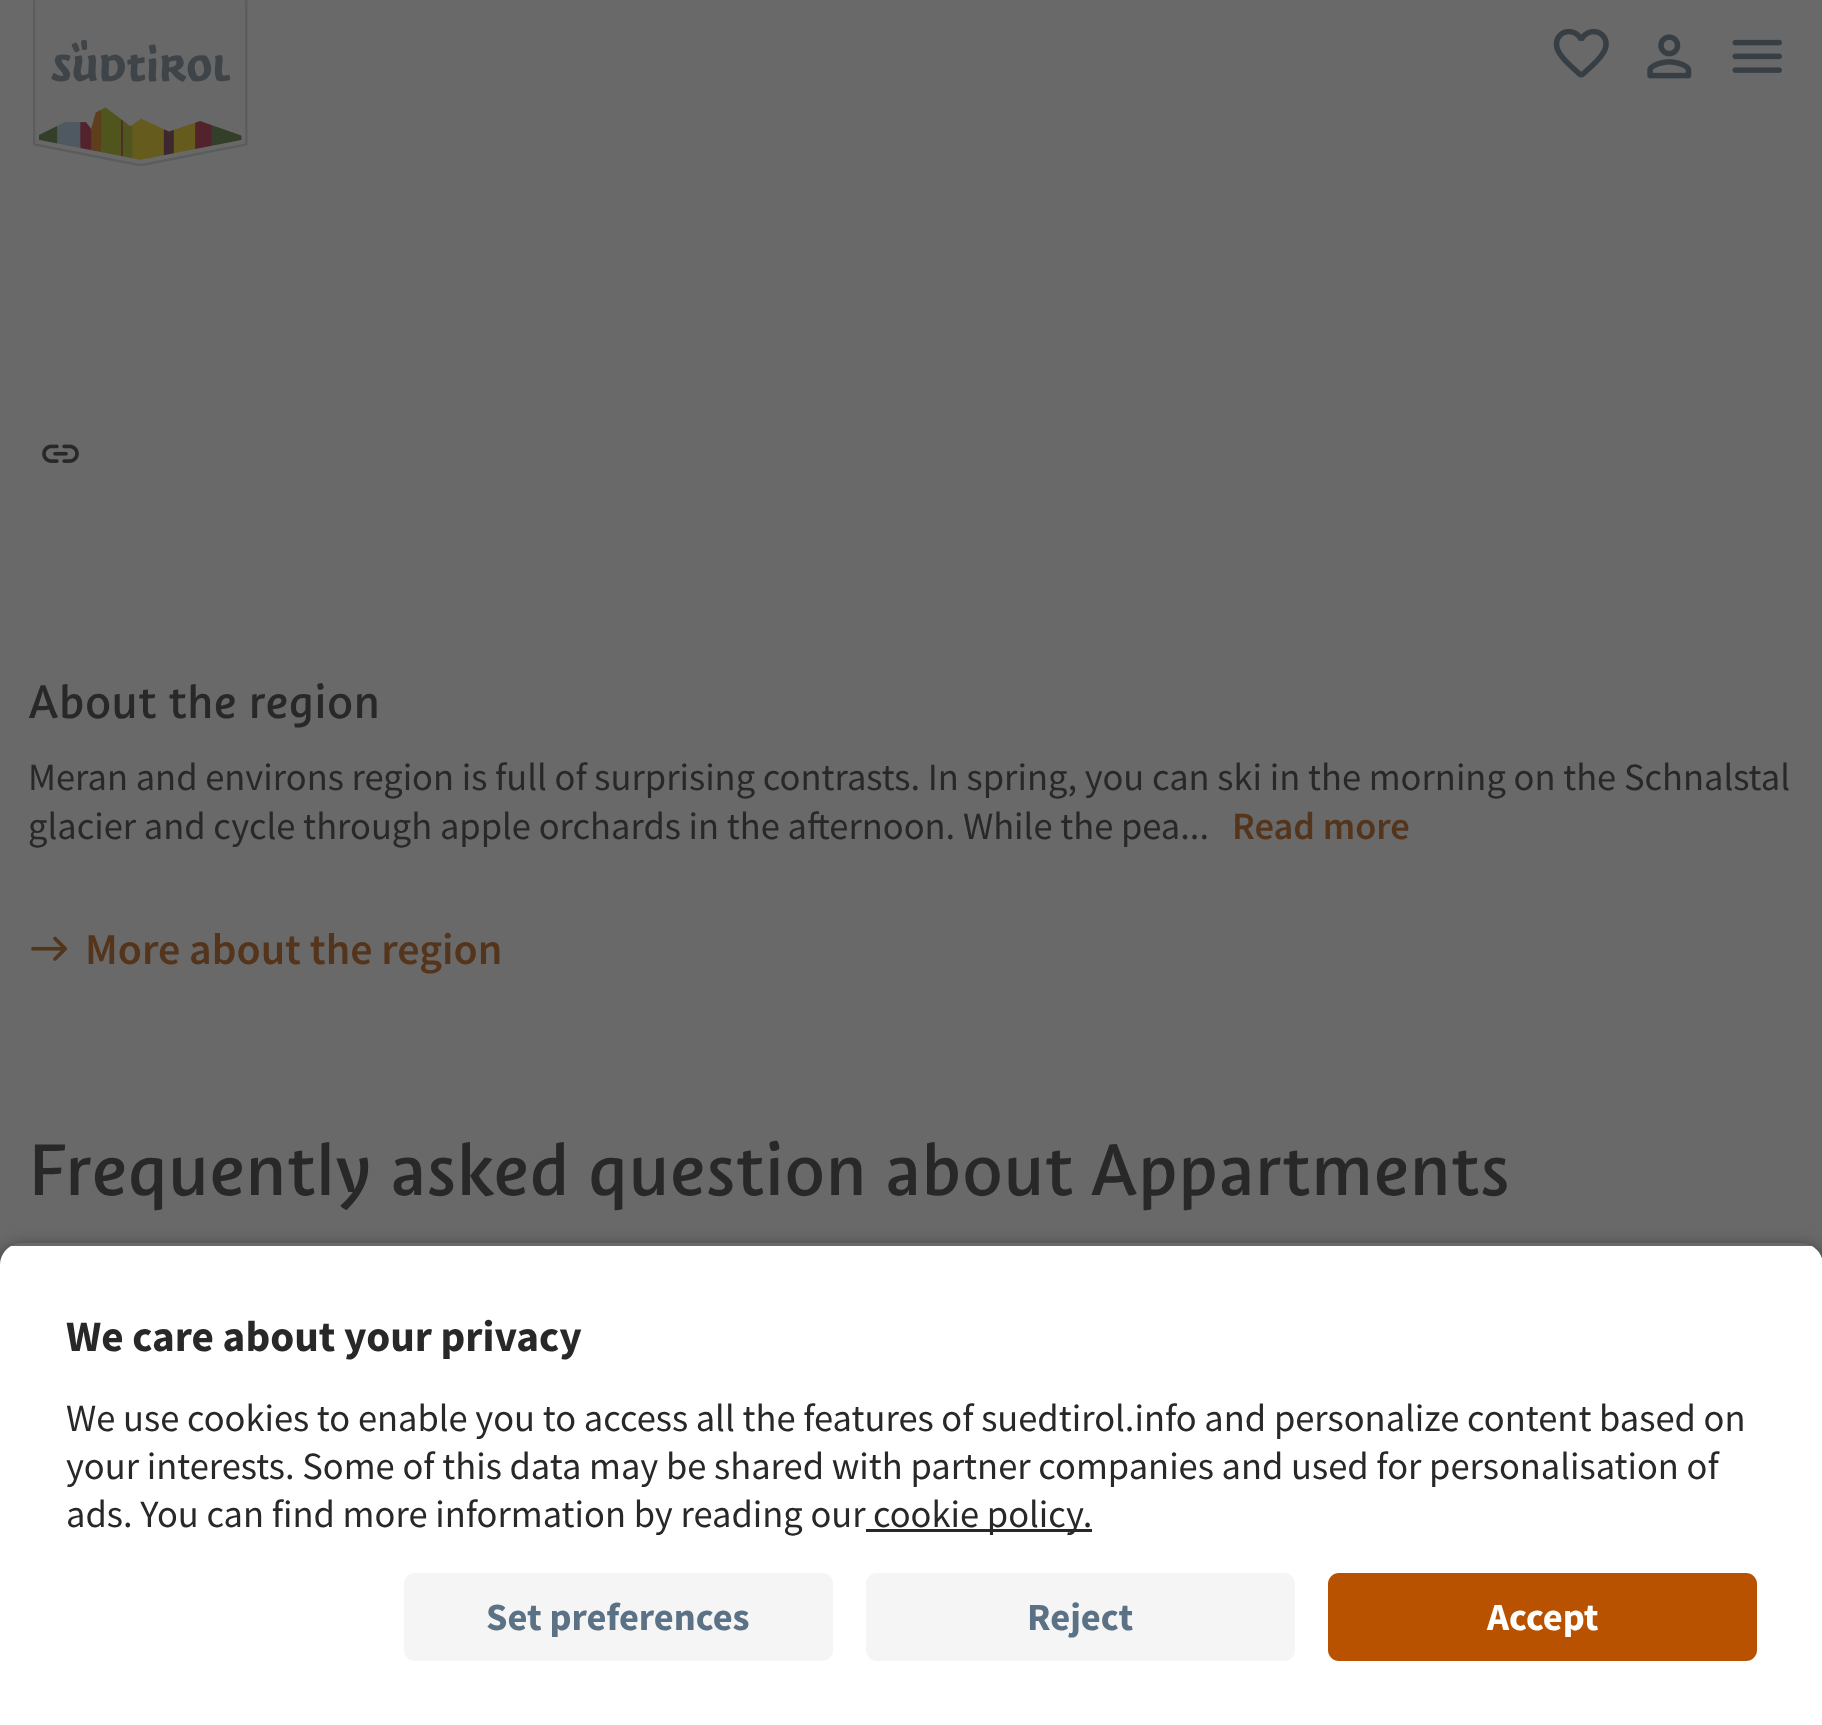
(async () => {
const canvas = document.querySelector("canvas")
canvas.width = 1822
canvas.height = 1725
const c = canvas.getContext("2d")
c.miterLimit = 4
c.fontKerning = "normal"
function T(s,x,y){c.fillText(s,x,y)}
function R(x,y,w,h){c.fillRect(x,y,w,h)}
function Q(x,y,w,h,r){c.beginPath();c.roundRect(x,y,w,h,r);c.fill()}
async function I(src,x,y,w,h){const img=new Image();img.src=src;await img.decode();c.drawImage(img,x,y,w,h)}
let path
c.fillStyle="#696969"
R(0,0,1822,1725)
await I("1.png",33,0,215,166)
await I("2.png",1553,28,56,50)
await I("3.png",1647,34,45,45)
await I("4.png",1732,39,50,34)
await I("5.png",42,444,37,19)
c.font="49.5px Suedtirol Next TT"
c.fillStyle="#282828"
T("About the region",28,718)
c.font="38.5px Source Sans Pro"
T("Meran and environs region is full of surprising contrasts. In spring, you can ski in the morning on the Schnalstal",28,790)
T("glacier and cycle through apple orchards in the afternoon. While the pea...",28,839)
c.font="600 38.5px Source Sans Pro"
c.fillStyle="#54351c"
T("Read more",1232,839)
await I("6.png",31,936,37,25)
c.font="600 44px Source Sans Pro"
T("More about the region",85,964)
c.font="77px Suedtirol Next TT"
c.fillStyle="#282828"
T("Frequently asked question about",28,1195)
T("Appartments",1090,1195)
c.save()
path = new Path2D("M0 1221h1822v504h-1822zm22 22h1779c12 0 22 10 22 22v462h-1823v-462c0-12 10-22 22-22z")
c.clip(path,"evenodd")
c.fillStyle="#000000cc"
c.filter="blur(9.5px)"
c.beginPath()
c.roundRect(0,1251,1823,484,22)
c.fill()
c.filter="none"
c.restore()
c.save()
path = new Path2D("M22 1243h1779c12 0 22 10 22 22v286h-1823v-286c0-12 10-22 22-22z")
c.clip(path)
c.fillStyle="#fff"
R(0,1246,1822,305)
c.restore()
c.font="bold 43.25px Source Sans Pro"
T("We care about your privacy",66,1351)
c.font="38.5px Source Sans Pro"
T("We use cookies to enable you to access all the features of suedtirol.info and personalize content based on",66,1431)
T("your interests. Some of this data may be shared with partner companies and used for personalisation of",66,1479)
T("ads. You can find more information by reading our",66,1527)
R(866,1529,226,3)
T("cookie policy.",873,1527)
c.fillStyle="#fff"
R(0,1551,1822,174)
c.fillStyle="#f5f5f5"
Q(404,1573,429,88,11)
c.font="bold 38.5px Source Sans Pro"
c.fillStyle="#5b7286"
T("Set preferences",486,1630)
c.fillStyle="#f5f5f5"
Q(866,1573,429,88,11)
c.fillStyle="#5b7286"
T("Reject",1027,1630)
c.fillStyle="#b95200"
Q(1328,1573,429,88,11)
c.fillStyle="#fff"
T("Accept",1487,1630)
})()
